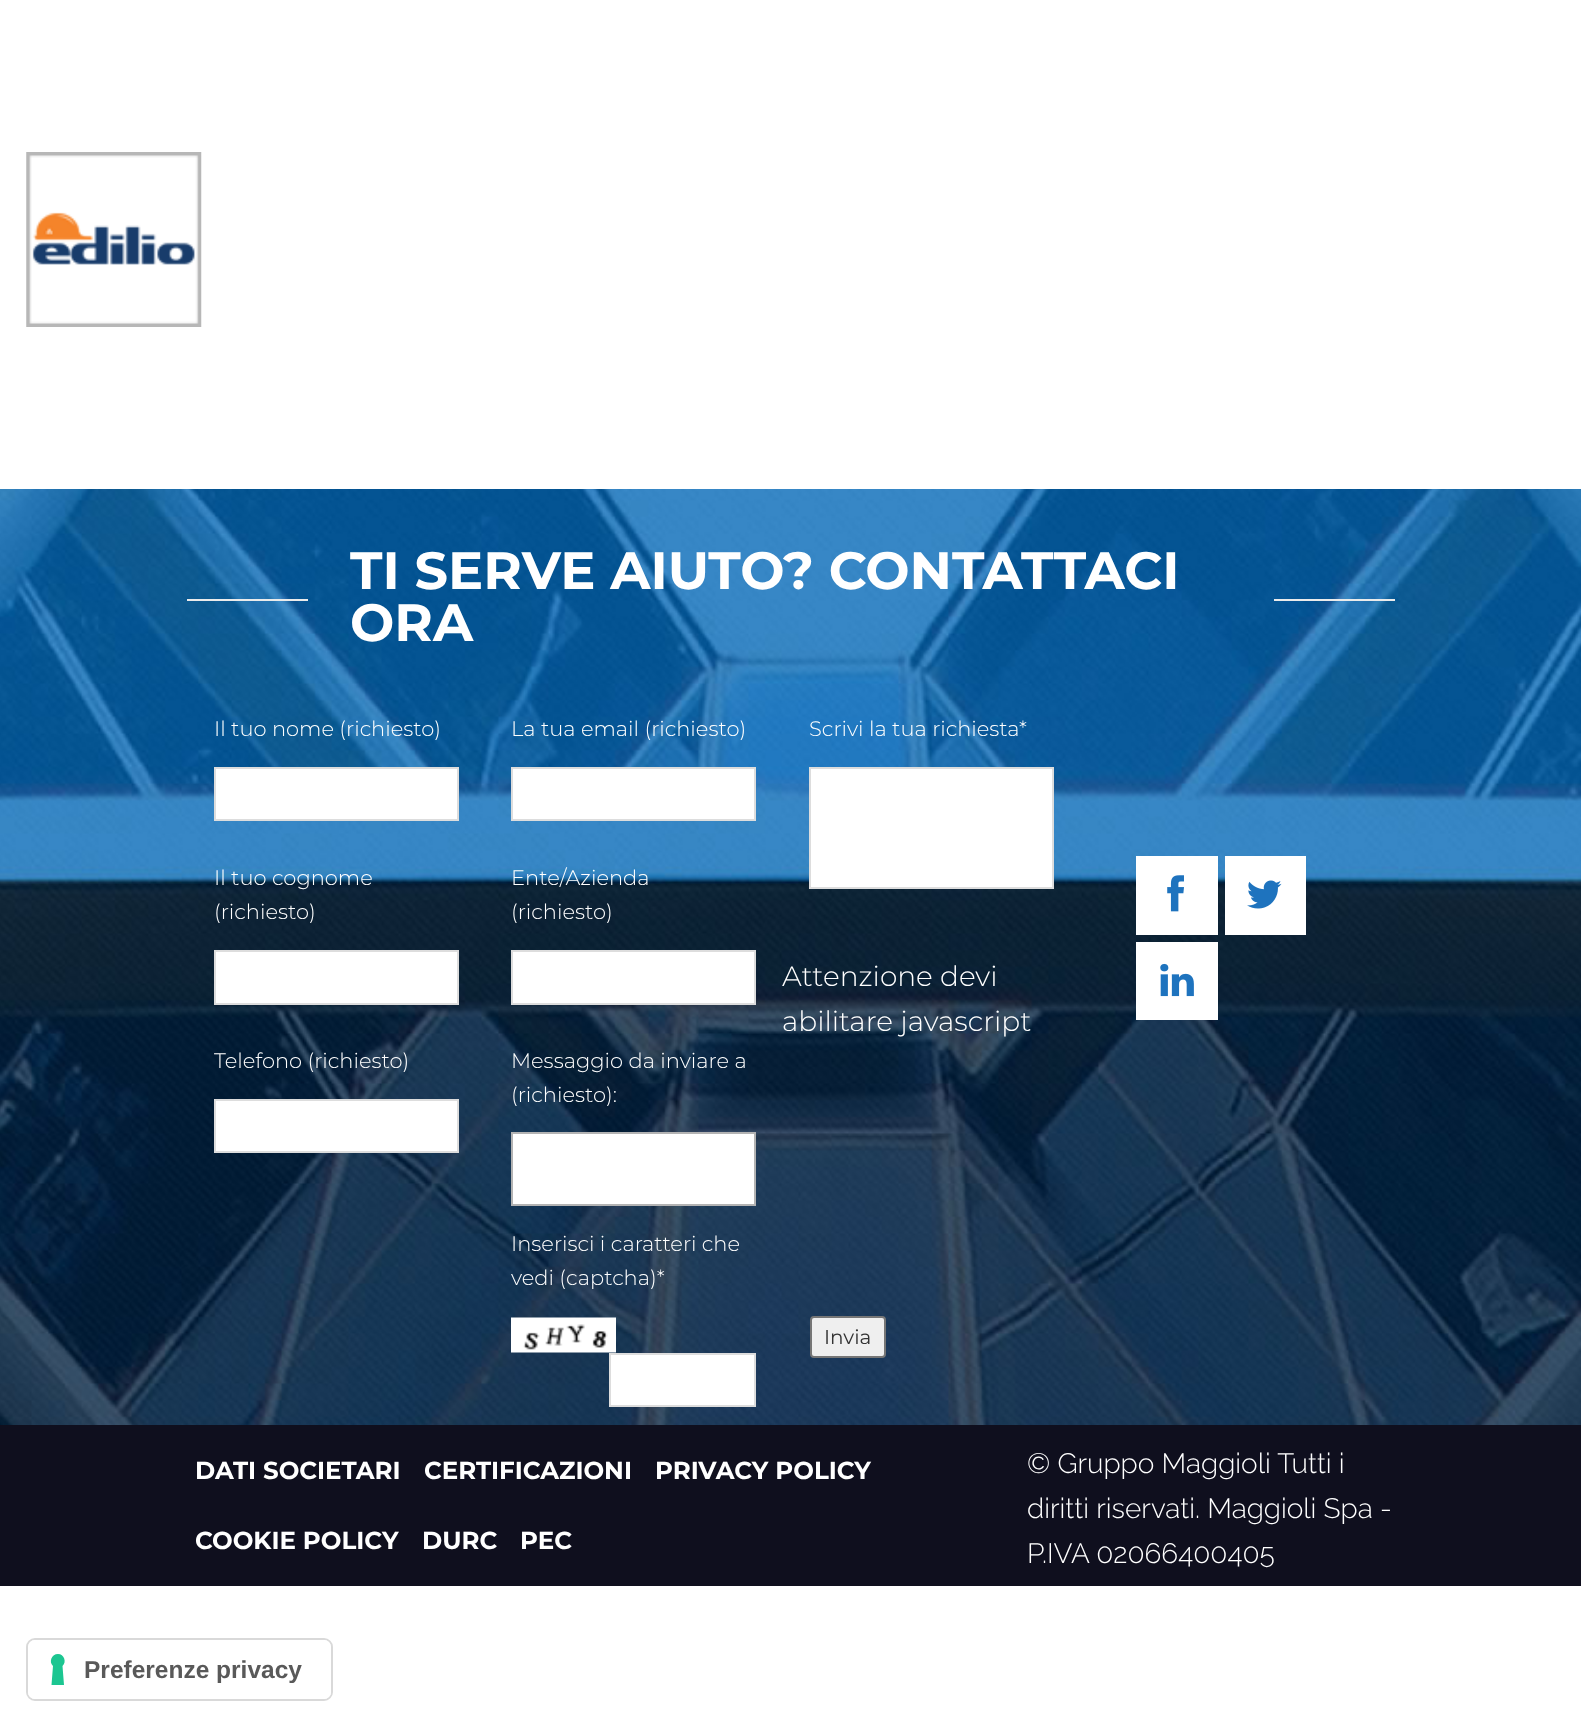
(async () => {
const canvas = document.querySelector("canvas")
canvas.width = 1581
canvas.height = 1726
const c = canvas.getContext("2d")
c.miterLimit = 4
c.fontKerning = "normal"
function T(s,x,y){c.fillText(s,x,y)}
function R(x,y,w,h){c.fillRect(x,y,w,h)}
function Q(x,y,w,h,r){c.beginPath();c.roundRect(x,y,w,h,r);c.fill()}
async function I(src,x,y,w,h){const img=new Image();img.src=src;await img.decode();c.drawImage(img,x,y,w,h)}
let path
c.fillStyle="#fff"
R(0,0,1581,1726)
await I("1.png",26,152,176,175)
await I("2.png",0,489,1581,936)
c.fillStyle="#ebebeb"
R(187,599,121,2)
c.font="bold 52.5px Montserrat"
c.fillStyle="#fff"
T("TI SERVE AIUTO? CONTATTACI",350,589)
T("ORA",350,641)
c.fillStyle="#ebebeb"
R(1274,599,121,2)
c.font="300 21px Montserrat"
c.fillStyle="#fff"
T("Il tuo nome (richiesto)",214,736)
c.beginPath()
c.rect(215,768,243,52)
c.fill()
c.strokeStyle="#ddd"
c.lineWidth=2
c.stroke()
T("Il tuo cognome",214,885)
T("(richiesto)",214,919)
c.beginPath()
c.rect(215,951,243,53)
c.fill()
c.stroke()
T("Telefono (richiesto)",214,1068)
c.beginPath()
c.rect(215,1100,243,52)
c.fill()
c.stroke()
T("La tua email (richiesto)",511,736)
c.beginPath()
c.rect(512,768,243,52)
c.fill()
c.stroke()
T("Ente/Azienda",511,885)
T("(richiesto)",511,919)
c.beginPath()
c.rect(512,951,243,53)
c.fill()
c.stroke()
T("Messaggio da inviare a",511,1068)
T("(richiesto):",511,1102)
c.beginPath()
c.rect(512,1133,243,72)
c.fill()
c.strokeStyle="#b3b3b3"
c.stroke()
T("Inserisci i caratteri che",511,1251)
T("vedi (captcha)*",511,1285)
await I("3.png",511,1317,105,36)
c.beginPath()
c.rect(610,1354,145,52)
c.fill()
c.strokeStyle="#ddd"
c.stroke()
T("Scrivi la tua richiesta*",809,736)
c.beginPath()
c.rect(810,768,243,120)
c.fill()
c.stroke()
c.font="300 28px Montserrat"
T("Attenzione devi",782,986)
T("abilitare javascript",782,1031)
c.fillStyle="#efefef"
c.beginPath()
c.roundRect(811,1317,74,40,3)
c.fill()
c.strokeStyle="#767676"
c.stroke()
c.font="20px Montserrat"
c.fillStyle="#333"
T("Invia",824,1344)
c.fillStyle="#fff"
R(1136,856,82,79)
await I("4.png",1167,875,17,37)
R(1225,856,81,79)
await I("5.png",1247,880,35,29)
R(1136,942,82,78)
await I("6.png",1160,963,34,34)
c.fillStyle="#0f0f1e"
R(0,1425,1581,161)
c.font="bold 24.5px Montserrat"
c.fillStyle="#fff"
T("DATI SOCIETARI",195,1479)
T("CERTIFICAZIONI",424,1479)
T("PRIVACY POLICY",655,1479)
T("COOKIE POLICY",195,1549)
T("DURC",422,1549)
T("PEC",520,1549)
c.font="300 28px Raleway"
T("© Gruppo Maggioli Tutti i",1027,1473)
T("diritti riservati. Maggioli Spa -",1027,1518)
T("P.IVA 02066400405",1027,1563)
c.beginPath()
c.roundRect(27,1639,305,61,8)
c.strokeStyle="#d9d9d9"
c.stroke()
Q(28,1640,303,59,7)
c.fillStyle="#1cc691"
path = new Path2D("M58 1654c6 0 9 8 4.5 12l1.5 19h-12.5l1.5-19c-4.5-4-1.5-12 5-12z")
c.fill(path,"evenodd")
c.font="bold 24.5px Liberation Sans"
c.fillStyle="#595959"
T("Preferenze privacy",84,1678)
})()
